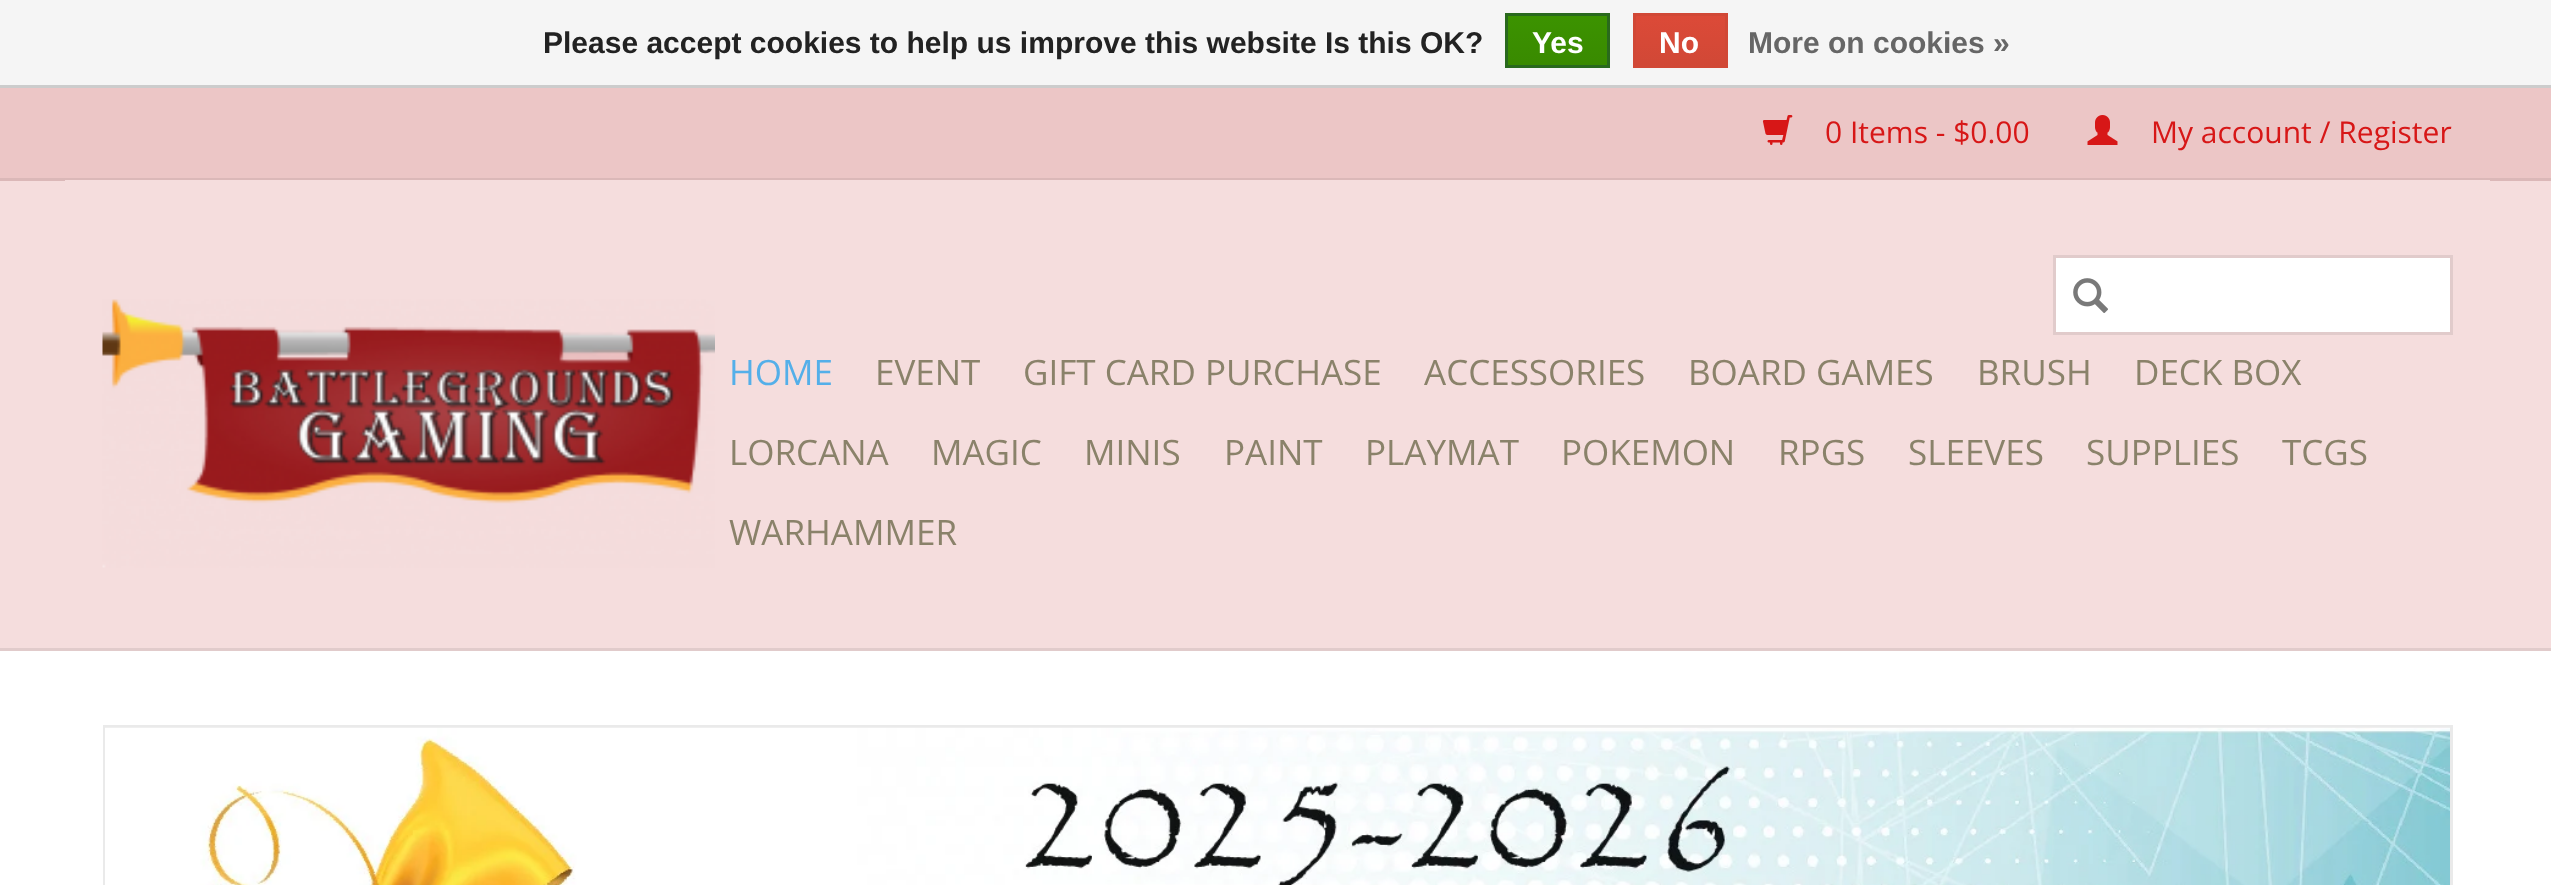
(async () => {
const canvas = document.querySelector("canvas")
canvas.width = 2551
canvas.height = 885
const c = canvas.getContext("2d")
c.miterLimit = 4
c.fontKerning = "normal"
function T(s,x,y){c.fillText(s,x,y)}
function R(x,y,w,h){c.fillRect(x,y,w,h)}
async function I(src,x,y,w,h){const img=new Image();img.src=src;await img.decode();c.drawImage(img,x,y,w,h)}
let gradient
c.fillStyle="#fff"
R(0,0,2551,885)
c.fillStyle="#f5f5f5"
R(0,0,2551,85)
c.fillStyle="#ccc"
R(0,85,2551,3)
c.font="bold 30px Liberation Sans"
c.fillStyle="#222"
T("Please accept cookies to help us improve this website Is this OK?",543,53)
gradient = c.createLinearGradient(1558,15,1558,65)
gradient.addColorStop(0,"#3c9300")
gradient.addColorStop(1,"#398a00")
c.fillStyle = gradient
R(1508,16,99,49)
c.strokeStyle="#29691d"
c.lineWidth=3
c.strokeRect(1506.5,14.5,102,52)
c.fillStyle="#fff"
T("Yes",1532,53)
gradient = c.createLinearGradient(1680,15,1680,65)
gradient.addColorStop(0,"#dc4a38")
gradient.addColorStop(1,"#d14836")
c.fillStyle = gradient
R(1636,16,89,49)
c.strokeStyle="#d14836"
c.strokeRect(1634.5,14.5,92,52)
c.fillStyle="#fff"
T("No",1659,53)
c.fillStyle="#666"
T("More on cookies »",1748,53)
c.fillStyle="#f5dddd"
R(0,181,2551,467)
c.fillStyle="#e1cbcb"
R(0,648,2551,3)
c.fillStyle="#ecc6c6"
R(0,88,2551,90)
c.fillStyle="#dbb8b8"
R(0,178,2551,3)
await I("1.png",1762,115,31,30)
c.font="30px Open Sans"
c.fillStyle="#d71717"
T("0 Items - $0.00",1825,143)
await I("2.png",2087,115,31,30)
T("My account / Register",2151,143)
c.fillStyle="#f5dddd"
R(65,180,2425,1)
await I("3.png",102,299,613,269)
c.fillStyle="#fff"
c.beginPath()
c.rect(2054.5,256.5,397,77)
c.fill()
c.strokeStyle="#e1cbcb"
c.stroke()
await I("4.png",2073,278,35,35)
c.font="35px Open Sans"
c.fillStyle="#54afe9"
T("HOME",729,385)
c.fillStyle="#8a826a"
T("EVENT",875,385)
T("GIFT CARD PURCHASE",1023,385)
T("ACCESSORIES",1424,385)
T("BOARD GAMES",1688,385)
T("BRUSH",1977,385)
T("DECK BOX",2134,385)
T("LORCANA",729,465)
T("MAGIC",931,465)
T("MINIS",1084,465)
T("PAINT",1224,465)
T("PLAYMAT",1365,465)
T("POKEMON",1561,465)
T("RPGS",1778,465)
T("SLEEVES",1908,465)
T("SUPPLIES",2086,465)
T("TCGS",2282,465)
T("WARHAMMER",729,545)
c.strokeStyle="#eaeaea"
c.strokeRect(104.5,726.5,2347,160)
await I("5.png",105,727,2345,158)
})()
